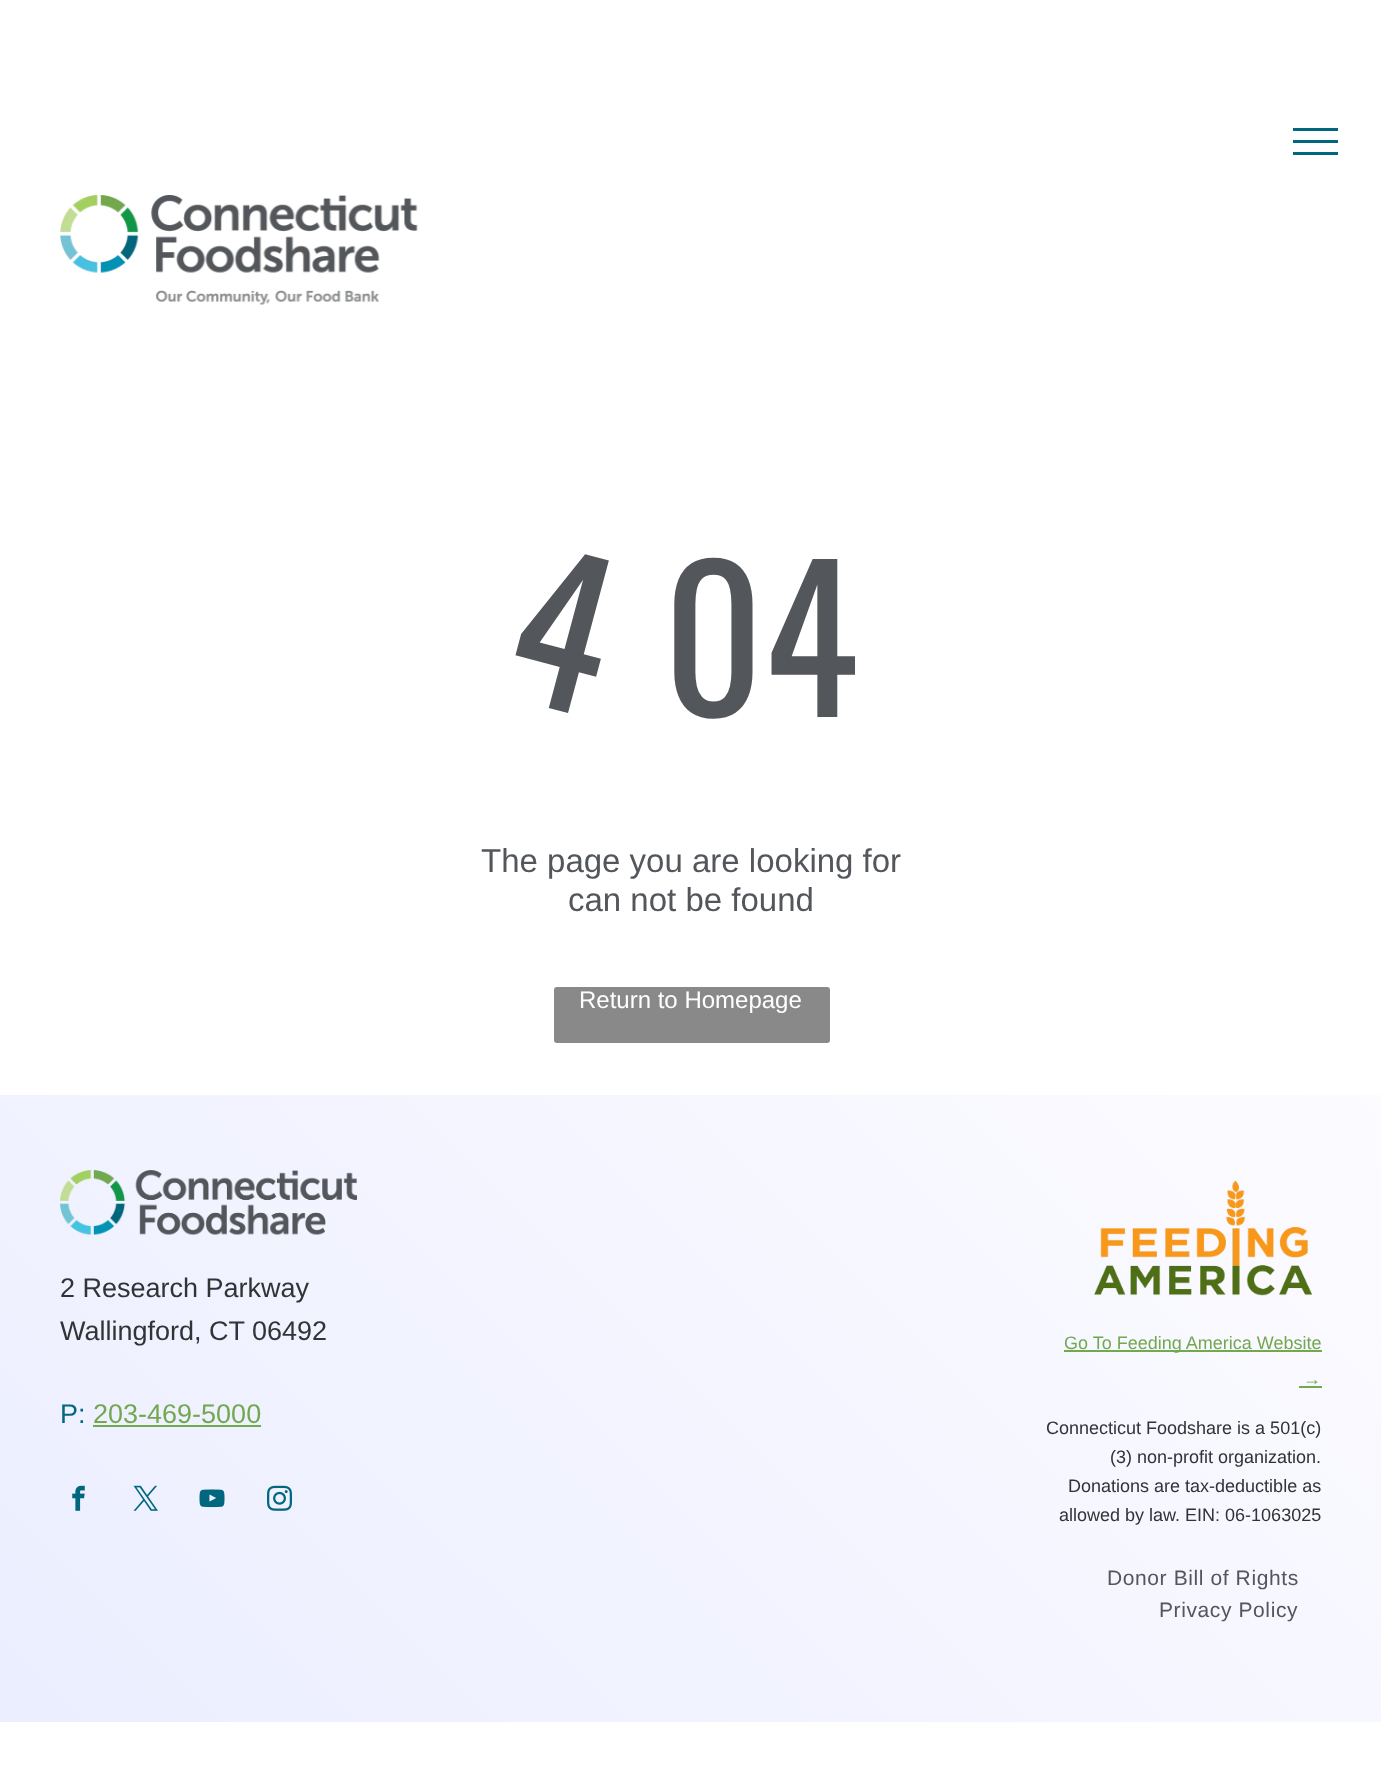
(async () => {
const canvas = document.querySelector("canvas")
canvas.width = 1381
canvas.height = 1765
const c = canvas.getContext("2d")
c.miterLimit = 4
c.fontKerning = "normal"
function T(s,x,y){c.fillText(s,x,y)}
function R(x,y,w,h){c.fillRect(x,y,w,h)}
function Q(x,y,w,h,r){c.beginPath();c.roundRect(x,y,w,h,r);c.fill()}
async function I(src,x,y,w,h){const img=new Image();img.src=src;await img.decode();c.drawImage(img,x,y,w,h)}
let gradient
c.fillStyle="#fff"
R(0,0,1381,1765)
c.fillStyle="#01677e"
R(1293,128,45,3)
R(1293,140,45,3)
R(1293,152,45,3)
await I("1.png",60,195,358,110)
c.font="195px Oswald"
c.fillStyle="#53565a"
c.save()
c.translate(497,694)
c.rotate(15 * Math.PI / 180)
c.fillText("4",0,0)
c.restore()
T("04",663,717)
c.font="33px Liberation Sans"
T("The page you are looking for",481,872)
T("can not be found",568,911)
c.fillStyle="#898989"
Q(554,987,276,56,3)
c.font="24px Liberation Sans"
c.fillStyle="#fff"
T("Return to Homepage",579,1008)
gradient = c.createLinearGradient(189,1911,1193,906)
gradient.addColorStop(0,"#ebeeff")
gradient.addColorStop(1,"#fcfbff")
c.fillStyle = gradient
R(0,1095,1381,627)
await I("2.png",60,1170,297,65)
c.font="27px Liberation Sans"
c.fillStyle="#313335"
T("2 Research Parkway",60,1297)
T("Wallingford, CT 06492",60,1340)
c.fillStyle="#01677e"
T("P:",60,1423)
c.fillStyle="#72a850"
T("203-469-5000",93,1423)
R(93,1425,168,2)
await I("3.png",72,1485,13,26)
await I("4.png",133,1485,25,26)
await I("5.png",199,1489,26,19)
await I("6.png",267,1485,25,26)
await I("7.png",1094,1180,218,116)
R(1064,1350,258,2)
c.font="18px Liberation Sans"
T("Go To Feeding America Website",1064,1349)
T("→",1303,1385)
R(1299,1386,23,2)
c.fillStyle="#313335"
T("Connecticut Foodshare is a 501(c)",1046,1434)
T("(3) non-profit organization.",1110,1463)
T("Donations are tax-deductible as",1068,1492)
T("allowed by law. EIN: 06-1063025",1059,1521)
c.letterSpacing="0.6px"
c.font="21px Liberation Sans"
c.fillStyle="#53565a"
T("Donor Bill of Rights",1107,1585)
T("Privacy Policy",1159,1617)
})()
